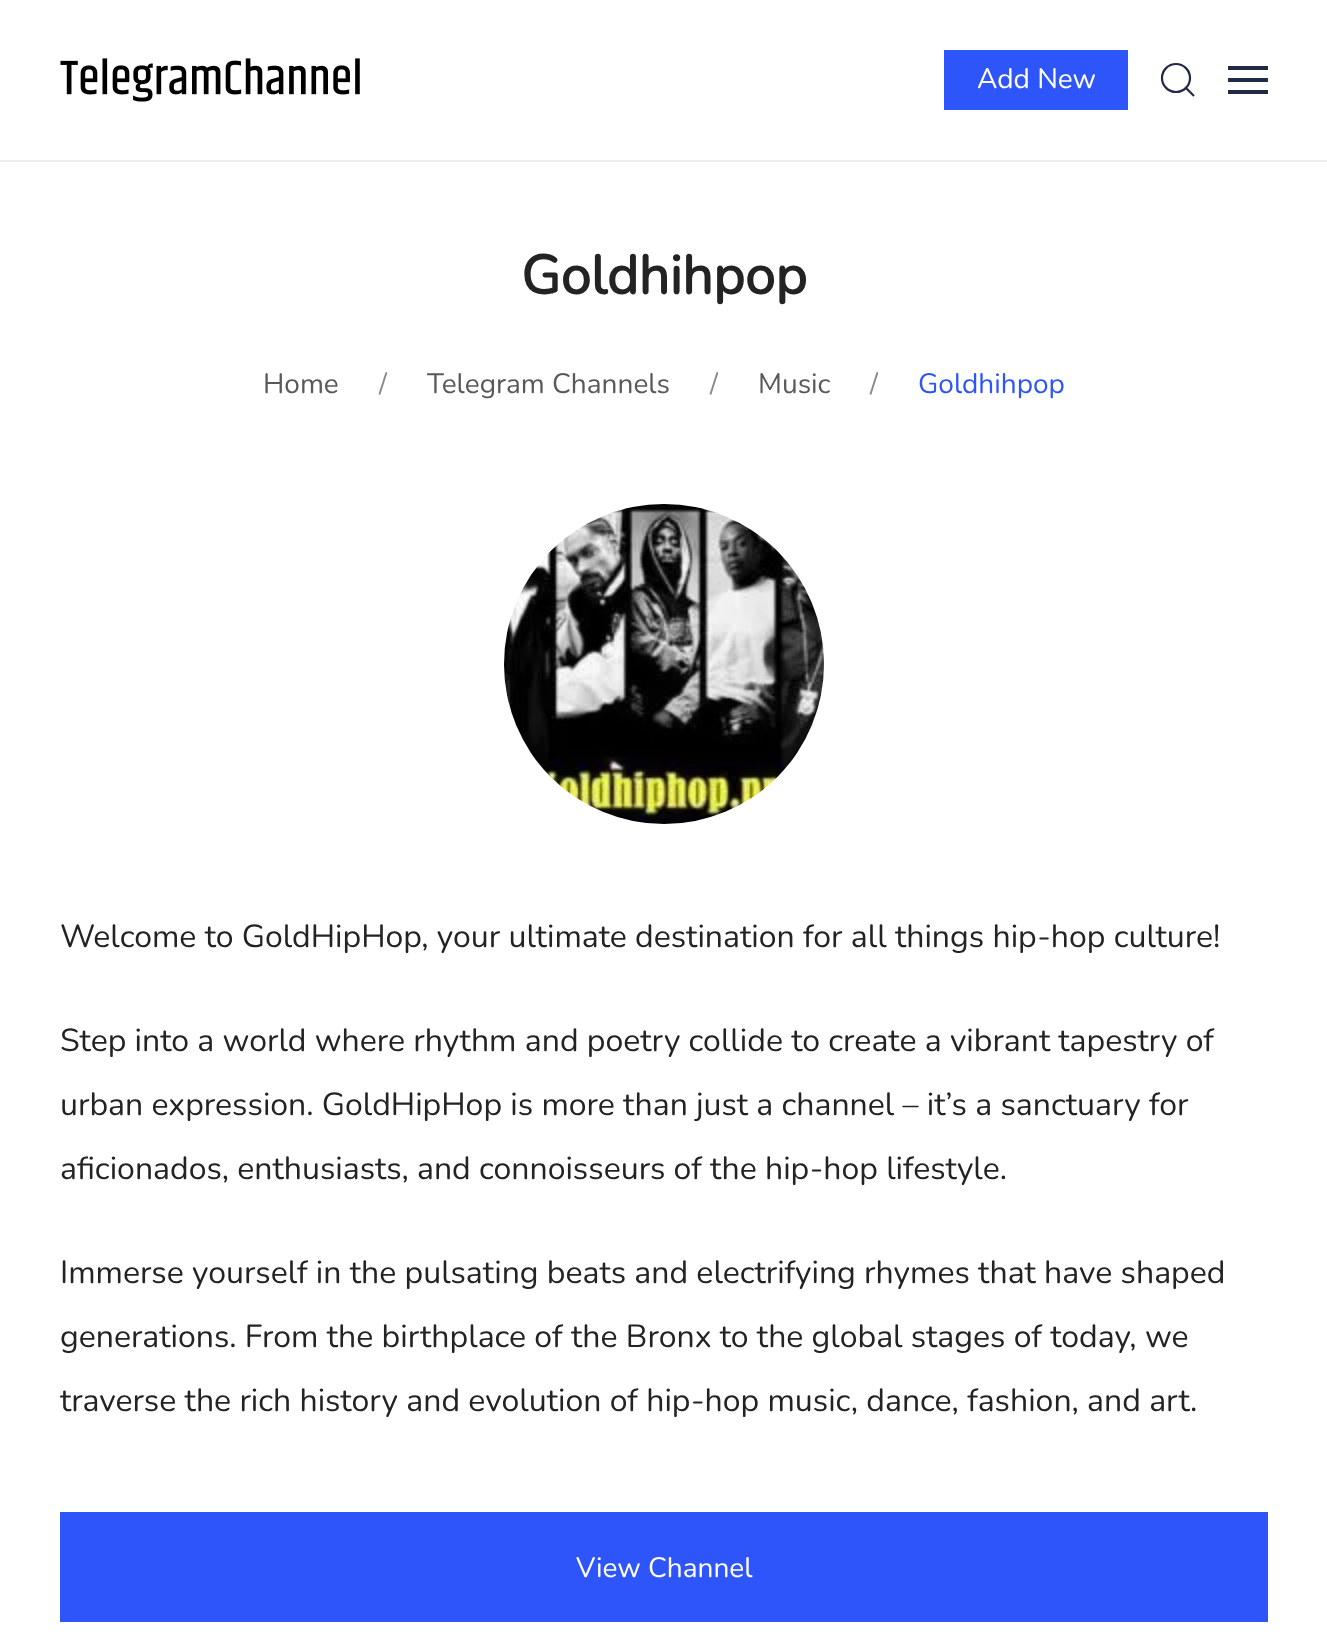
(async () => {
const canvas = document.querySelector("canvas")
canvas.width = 1327
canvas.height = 1649
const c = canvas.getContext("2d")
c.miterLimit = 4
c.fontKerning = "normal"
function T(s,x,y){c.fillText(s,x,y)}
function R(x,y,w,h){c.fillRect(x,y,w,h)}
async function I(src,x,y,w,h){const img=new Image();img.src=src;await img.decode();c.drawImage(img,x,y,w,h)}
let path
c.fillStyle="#fff"
R(0,0,1327,1649)
c.fillStyle="#ededed"
R(0,160,1327,2)
await I("1.png",60,58,300,44)
c.fillStyle="#2e55fa"
R(944,50,184,60)
c.font="200 28px Nunito"
c.fillStyle="#fff"
T("Add New",977,88)
c.beginPath()
c.arc(1176,78,14,0,7)
c.strokeStyle="#222845"
c.lineWidth=2.2
c.stroke()
path = new Path2D("M1186 88l8 8z")
c.stroke(path)
c.fillStyle="#222845"
R(1228,66,40,4)
R(1228,78,40,4)
R(1228,90,40,4)
c.font="bold 54.5px Nunito"
c.fillStyle="#232323"
T("Goldhihpop",521,294)
c.font="200 28px Nunito"
c.fillStyle="#595959"
T("Home",263,393)
c.fillStyle="#888"
T("/",379,393)
c.fillStyle="#595959"
T("Telegram Channels",427,393)
c.fillStyle="#888"
T("/",710,393)
c.fillStyle="#595959"
T("Music",758,393)
c.fillStyle="#888"
T("/",870,393)
c.fillStyle="#2e55fa"
T("Goldhihpop",918,393)
await I("2.png",504,504,320,320)
c.font="200 32px Nunito"
c.fillStyle="#232323"
T("Welcome to GoldHipHop, your ultimate destination for all things hip-hop culture!",60,947)
T("Step into a world where rhythm and poetry collide to create a vibrant tapestry of",60,1051)
T("urban expression. GoldHipHop is more than just a channel – it’s a sanctuary for",60,1115)
T("aficionados, enthusiasts, and connoisseurs of the hip-hop lifestyle.",60,1179)
T("Immerse yourself in the pulsating beats and electrifying rhymes that have shaped",60,1283)
T("generations. From the birthplace of the Bronx to the global stages of today, we",60,1347)
T("traverse the rich history and evolution of hip-hop music, dance, fashion, and art.",60,1411)
c.fillStyle="#2e55fa"
R(60,1512,1208,110)
c.font="200 28px Nunito"
c.fillStyle="#fff"
T("View Channel",576,1577)
})()
